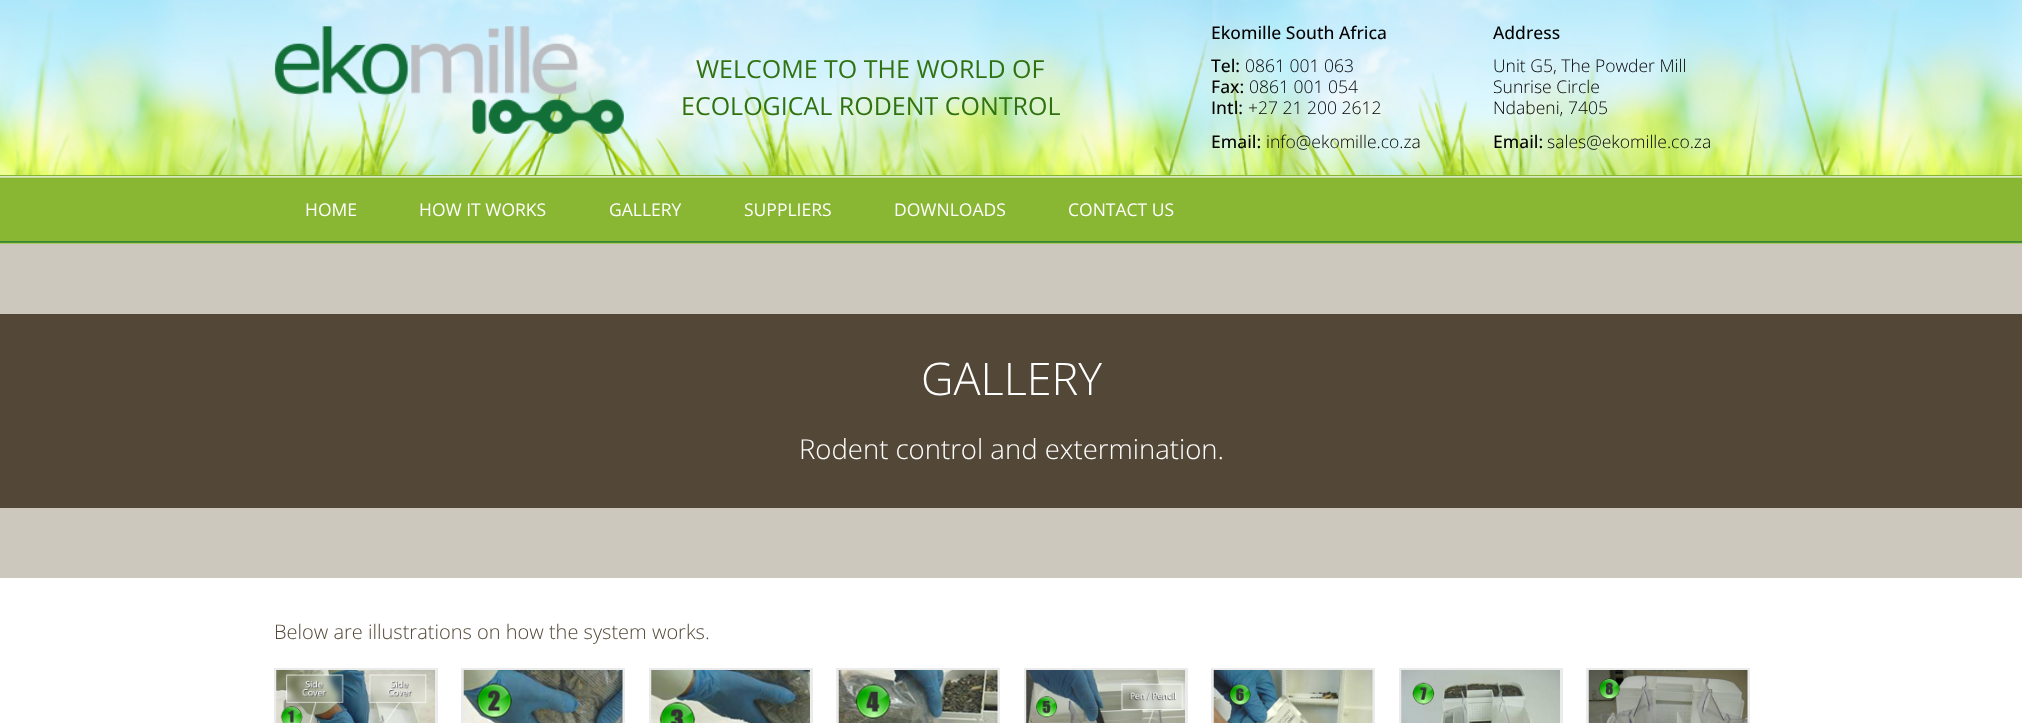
(async () => {
const canvas = document.querySelector("canvas")
canvas.width = 2022
canvas.height = 723
const c = canvas.getContext("2d")
c.miterLimit = 4
c.fontKerning = "normal"
function T(s,x,y){c.fillText(s,x,y)}
function R(x,y,w,h){c.fillRect(x,y,w,h)}
async function I(src,x,y,w,h){const img=new Image();img.src=src;await img.decode();c.drawImage(img,x,y,w,h)}
c.fillStyle="#fff"
R(0,0,2022,723)
await I("1.png",0,0,2022,175)
await I("2.png",274,26,350,108)
c.font="25px Open Sans"
c.fillStyle="#307210"
T("WELCOME TO THE WORLD OF",696,78)
T("ECOLOGICAL RODENT CONTROL",681,115)
c.font="500 17.5px Open Sans"
c.fillStyle="#000"
T("Ekomille South Africa",1211,39)
T("Tel:",1211,72)
c.font="300 17.5px Open Sans"
T("0861 001 063",1245,72)
c.font="500 17.5px Open Sans"
T("Fax:",1211,93)
c.font="300 17.5px Open Sans"
T("0861 001 054",1249,93)
c.font="500 17.5px Open Sans"
T("Intl:",1211,114)
c.font="300 17.5px Open Sans"
T("+27 21 200 2612",1248,114)
c.font="500 17.5px Open Sans"
T("Email:",1211,148)
c.font="300 17.5px Open Sans"
T("info@ekomille.co.za",1266,148)
c.font="500 17.5px Open Sans"
T("Address",1493,39)
c.font="300 17.5px Open Sans"
T("Unit G5, The Powder Mill",1493,72)
T("Sunrise Circle",1493,93)
T("Ndabeni, 7405",1493,114)
c.font="500 17.5px Open Sans"
T("Email:",1493,148)
c.font="300 17.5px Open Sans"
T("sales@ekomille.co.za",1547,148)
await I("3.png",0,175,2022,69)
c.font="17.5px Open Sans"
c.fillStyle="#fff"
T("HOME",305,216)
T("HOW IT WORKS",419,216)
T("GALLERY",609,216)
T("SUPPLIERS",744,216)
T("DOWNLOADS",894,216)
T("CONTACT US",1068,216)
c.fillStyle="#cdc8be"
R(0,244,2022,70)
c.fillStyle="#534837"
R(0,314,2022,194)
c.font="300 45px Open Sans"
c.fillStyle="#fff"
T("GALLERY",921,395)
c.font="300 27.5px Open Sans"
T("Rodent control and extermination.",799,459)
c.fillStyle="#cdc8be"
R(0,508,2022,70)
c.font="300 20px Open Sans"
c.fillStyle="#534837"
T("Below are illustrations on how the system works.",274,639)
c.strokeStyle="#ebebeb"
c.lineWidth=3
c.strokeRect(275.5,669.5,161,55)
await I("4.png",276,670,159,53)
c.strokeRect(462.5,669.5,161,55)
await I("5.png",463,670,160,53)
c.strokeRect(650.5,669.5,161,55)
await I("6.png",651,670,159,53)
c.strokeRect(837.5,669.5,161,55)
await I("7.png",838,670,160,53)
c.strokeRect(1025.5,669.5,161,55)
await I("8.png",1026,670,159,53)
c.strokeRect(1212.5,669.5,161,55)
await I("9.png",1213,670,160,53)
c.strokeRect(1400.5,669.5,161,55)
await I("10.png",1401,670,159,53)
c.strokeRect(1587.5,669.5,161,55)
await I("11.png",1588,670,160,53)
})()
